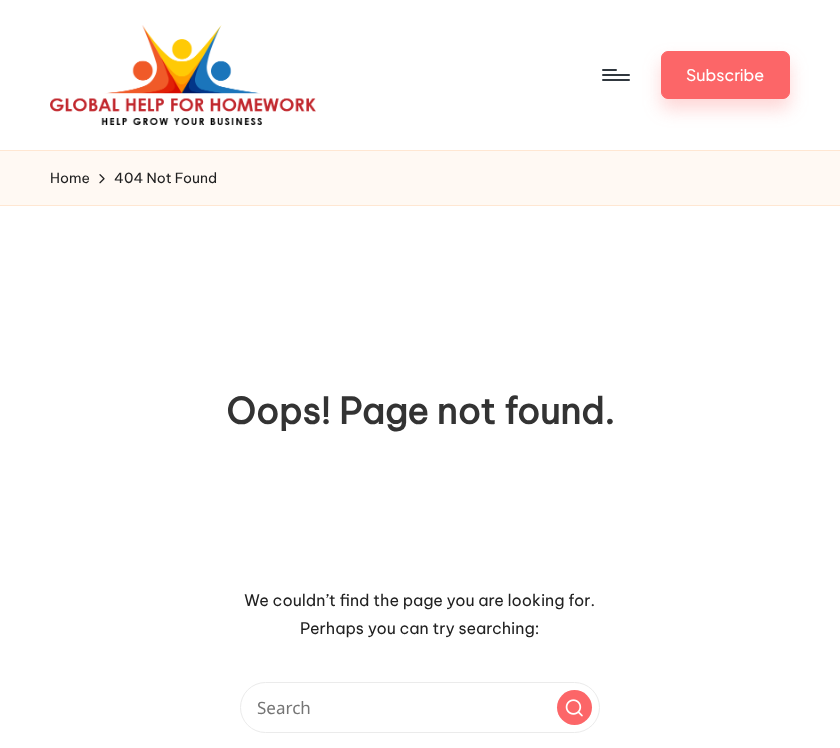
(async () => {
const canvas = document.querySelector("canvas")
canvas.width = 840
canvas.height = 748
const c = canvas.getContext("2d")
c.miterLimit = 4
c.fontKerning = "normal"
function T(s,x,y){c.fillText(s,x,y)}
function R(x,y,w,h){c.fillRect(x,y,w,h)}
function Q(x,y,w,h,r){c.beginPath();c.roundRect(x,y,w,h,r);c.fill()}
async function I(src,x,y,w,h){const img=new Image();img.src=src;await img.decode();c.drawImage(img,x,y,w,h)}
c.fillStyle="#fff"
R(0,0,840,748)
await I("1.png",50,25,266,100)
c.fillStyle="#30373e"
Q(602,74,28,2,1)
Q(602,69,15,2,1)
Q(602,79,28,2,1)
c.fillStyle="#fc666845"
c.filter="blur(9px)"
c.beginPath()
c.roundRect(661,61,129,48,7)
c.fill()
c.filter="none"
c.fillStyle="#fc6668"
c.beginPath()
c.roundRect(661.5,51.5,128,47,6.5)
c.fill()
c.strokeStyle="#fc6668"
c.stroke()
c.font="500 16px Plus Jakarta Sans"
c.fillStyle="#fff"
T("Subscribe",686,81)
c.fillStyle="#fff9f3"
R(0,151,840,54)
c.fillStyle="#ffe7d2"
R(0,150,840,1)
R(0,205,840,1)
c.font="14px Be Vietnam Pro"
c.fillStyle="#212121"
T("Home",50,183)
await I("2.png",99,174,6,10)
T("404 Not Found",114,183)
c.font="bold 36px Be Vietnam Pro"
c.fillStyle="#333"
T("Oops! Page not found.",226,424)
c.font="16px Be Vietnam Pro"
c.fillStyle="#212121"
T("We couldn’t find the page you are looking for.",244,606)
T("Perhaps you can try searching:",300,634)
c.beginPath()
c.roundRect(240.5,682.5,359,50,25)
c.strokeStyle="#ebebeb"
c.stroke()
c.font="17px Noto Sans"
c.fillStyle="#757575"
T("Search",257,714)
c.fillStyle="#fc6668"
c.beginPath()
c.arc(574.5,707.5,17.5,0,7)
c.fill()
await I("3.png",565,699,18,18)
})()
